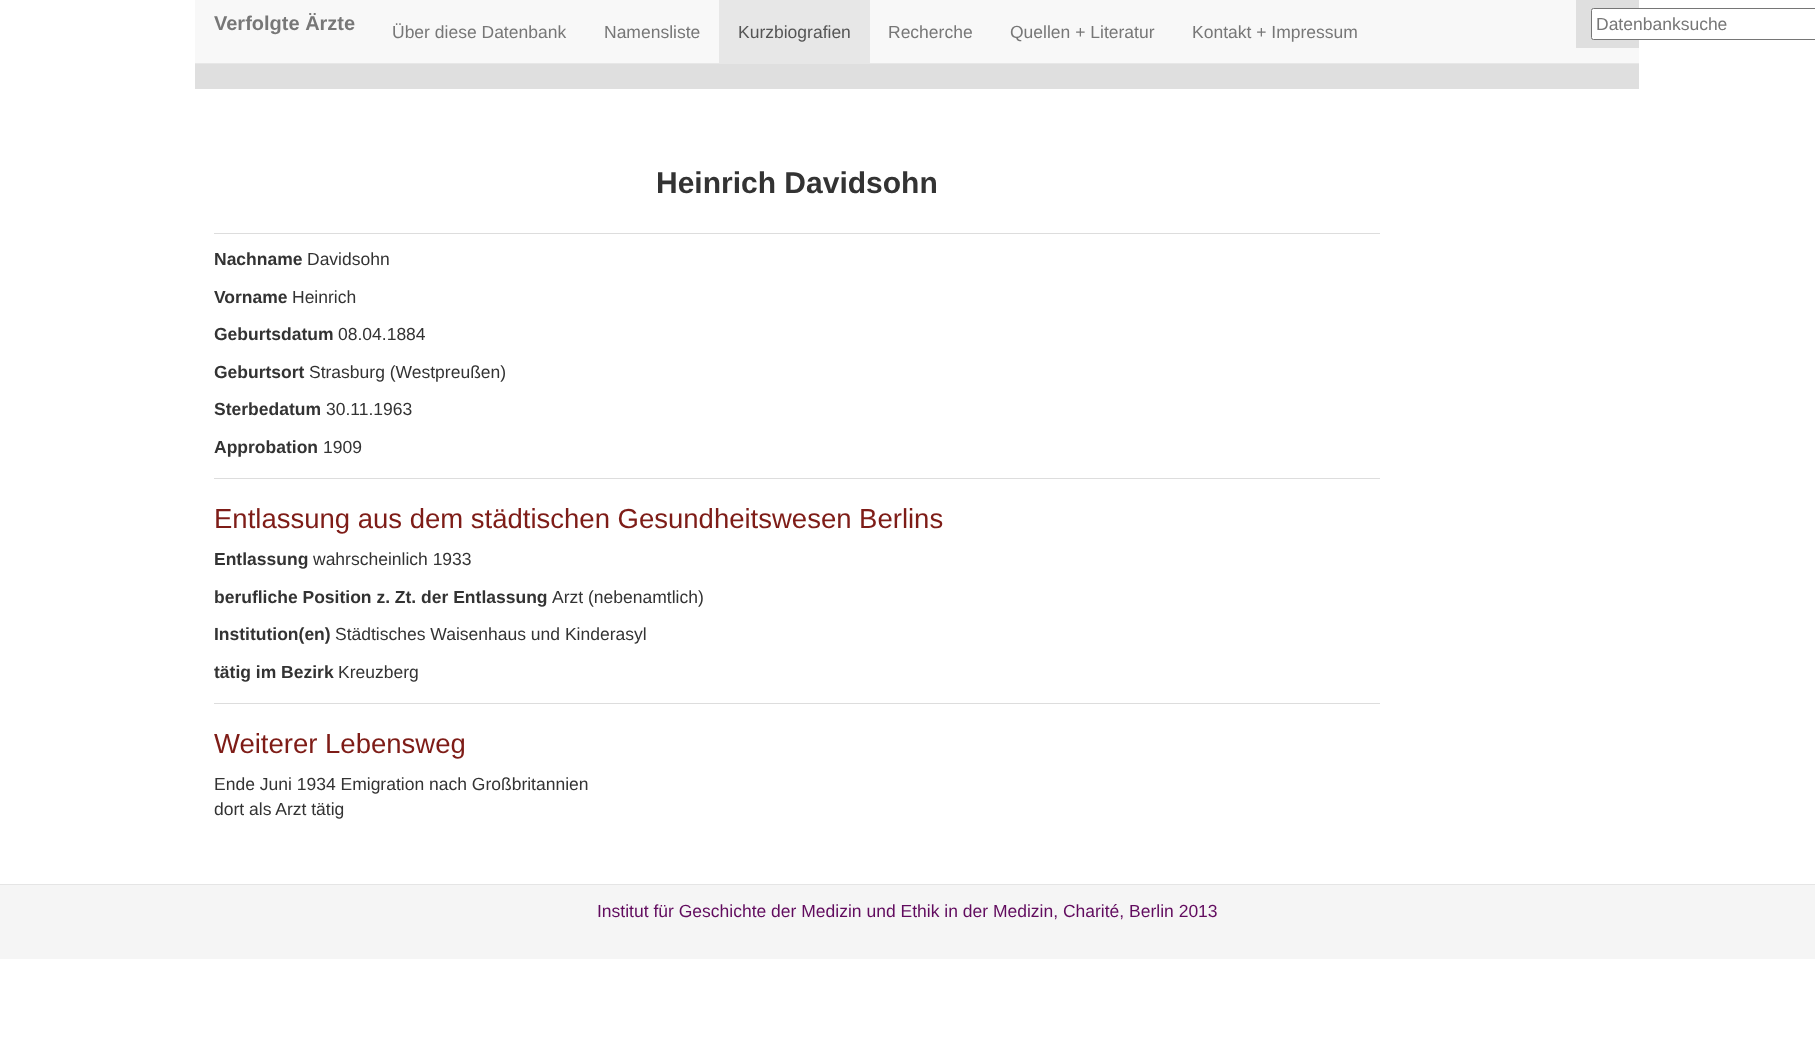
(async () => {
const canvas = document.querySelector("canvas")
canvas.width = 1815
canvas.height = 1058
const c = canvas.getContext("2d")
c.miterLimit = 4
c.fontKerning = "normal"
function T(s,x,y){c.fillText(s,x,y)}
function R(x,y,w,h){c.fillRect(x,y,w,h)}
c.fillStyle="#fff"
R(0,0,1815,1058)
c.fillStyle="#dfdfdf"
R(195,64,1444,25)
c.fillStyle="#f8f8f8"
R(195,0,1444,63)
c.fillStyle="#e7e7e7"
R(195,63,1444,1)
c.font="bold 20px Liberation Sans"
c.fillStyle="#777"
T("Verfolgte Ärzte",214,30)
c.font="17.5px Liberation Sans"
T("Über diese Datenbank",392,38)
T("Namensliste",604,38)
c.fillStyle="#e7e7e7"
R(719,0,151,63)
c.fillStyle="#555"
T("Kurzbiografien",738,38)
c.fillStyle="#777"
T("Recherche",888,38)
T("Quellen + Literatur",1010,38)
T("Kontakt + Impressum",1192,38)
c.fillStyle="#dfdfdf"
R(1576,0,63,48)
c.fillStyle="#fff"
c.beginPath()
c.roundRect(1591.5,8.5,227,31,2)
c.fill()
c.strokeStyle="#767676"
c.stroke()
c.fillStyle="#777"
T("Datenbanksuche",1596,30)
c.font="bold 30px Liberation Sans"
c.fillStyle="#333"
T("Heinrich Davidsohn",656,193)
c.fillStyle="#ddd"
R(214,233,1166,1)
c.font="bold 17.5px Liberation Sans"
c.fillStyle="#333"
T("Nachname",214,265)
c.font="17.5px Liberation Sans"
T("Davidsohn",307,265)
c.font="bold 17.5px Liberation Sans"
T("Vorname",214,303)
c.font="17.5px Liberation Sans"
T("Heinrich",292,303)
c.font="bold 17.5px Liberation Sans"
T("Geburtsdatum",214,340)
c.font="17.5px Liberation Sans"
T("08.04.1884",338,340)
c.font="bold 17.5px Liberation Sans"
T("Geburtsort",214,378)
c.font="17.5px Liberation Sans"
T("Strasburg (Westpreußen)",309,378)
c.font="bold 17.5px Liberation Sans"
T("Sterbedatum",214,415)
c.font="17.5px Liberation Sans"
T("30.11.1963",326,415)
c.font="bold 17.5px Liberation Sans"
T("Approbation",214,453)
c.font="17.5px Liberation Sans"
T("1909",323,453)
c.fillStyle="#ddd"
R(214,478,1166,1)
c.font="27.5px Liberation Sans"
c.fillStyle="#7e1c17"
T("Entlassung aus dem städtischen Gesundheitswesen Berlins",214,528)
c.font="bold 17.5px Liberation Sans"
c.fillStyle="#333"
T("Entlassung",214,565)
c.font="17.5px Liberation Sans"
T("wahrscheinlich 1933",313,565)
c.font="bold 17.5px Liberation Sans"
T("berufliche Position z. Zt. der Entlassung",214,603)
c.font="17.5px Liberation Sans"
T("Arzt (nebenamtlich)",552,603)
c.font="bold 17.5px Liberation Sans"
T("Institution(en)",214,640)
c.font="17.5px Liberation Sans"
T("Städtisches Waisenhaus und Kinderasyl",335,640)
c.font="bold 17.5px Liberation Sans"
T("tätig im Bezirk",214,678)
c.font="17.5px Liberation Sans"
T("Kreuzberg",338,678)
c.fillStyle="#ddd"
R(214,703,1166,1)
c.font="27.5px Liberation Sans"
c.fillStyle="#7e1c17"
T("Weiterer Lebensweg",214,753)
c.font="17.5px Liberation Sans"
c.fillStyle="#333"
T("Ende Juni 1934 Emigration nach Großbritannien",214,790)
T("dort als Arzt tätig",214,815)
c.fillStyle="#f5f5f5"
R(0,885,1815,74)
c.fillStyle="#e5e5e5"
R(0,884,1815,1)
c.fillStyle="#610b5e"
T("Institut für Geschichte der Medizin und Ethik in der Medizin, Charité, Berlin 2013",597,917)
})()
